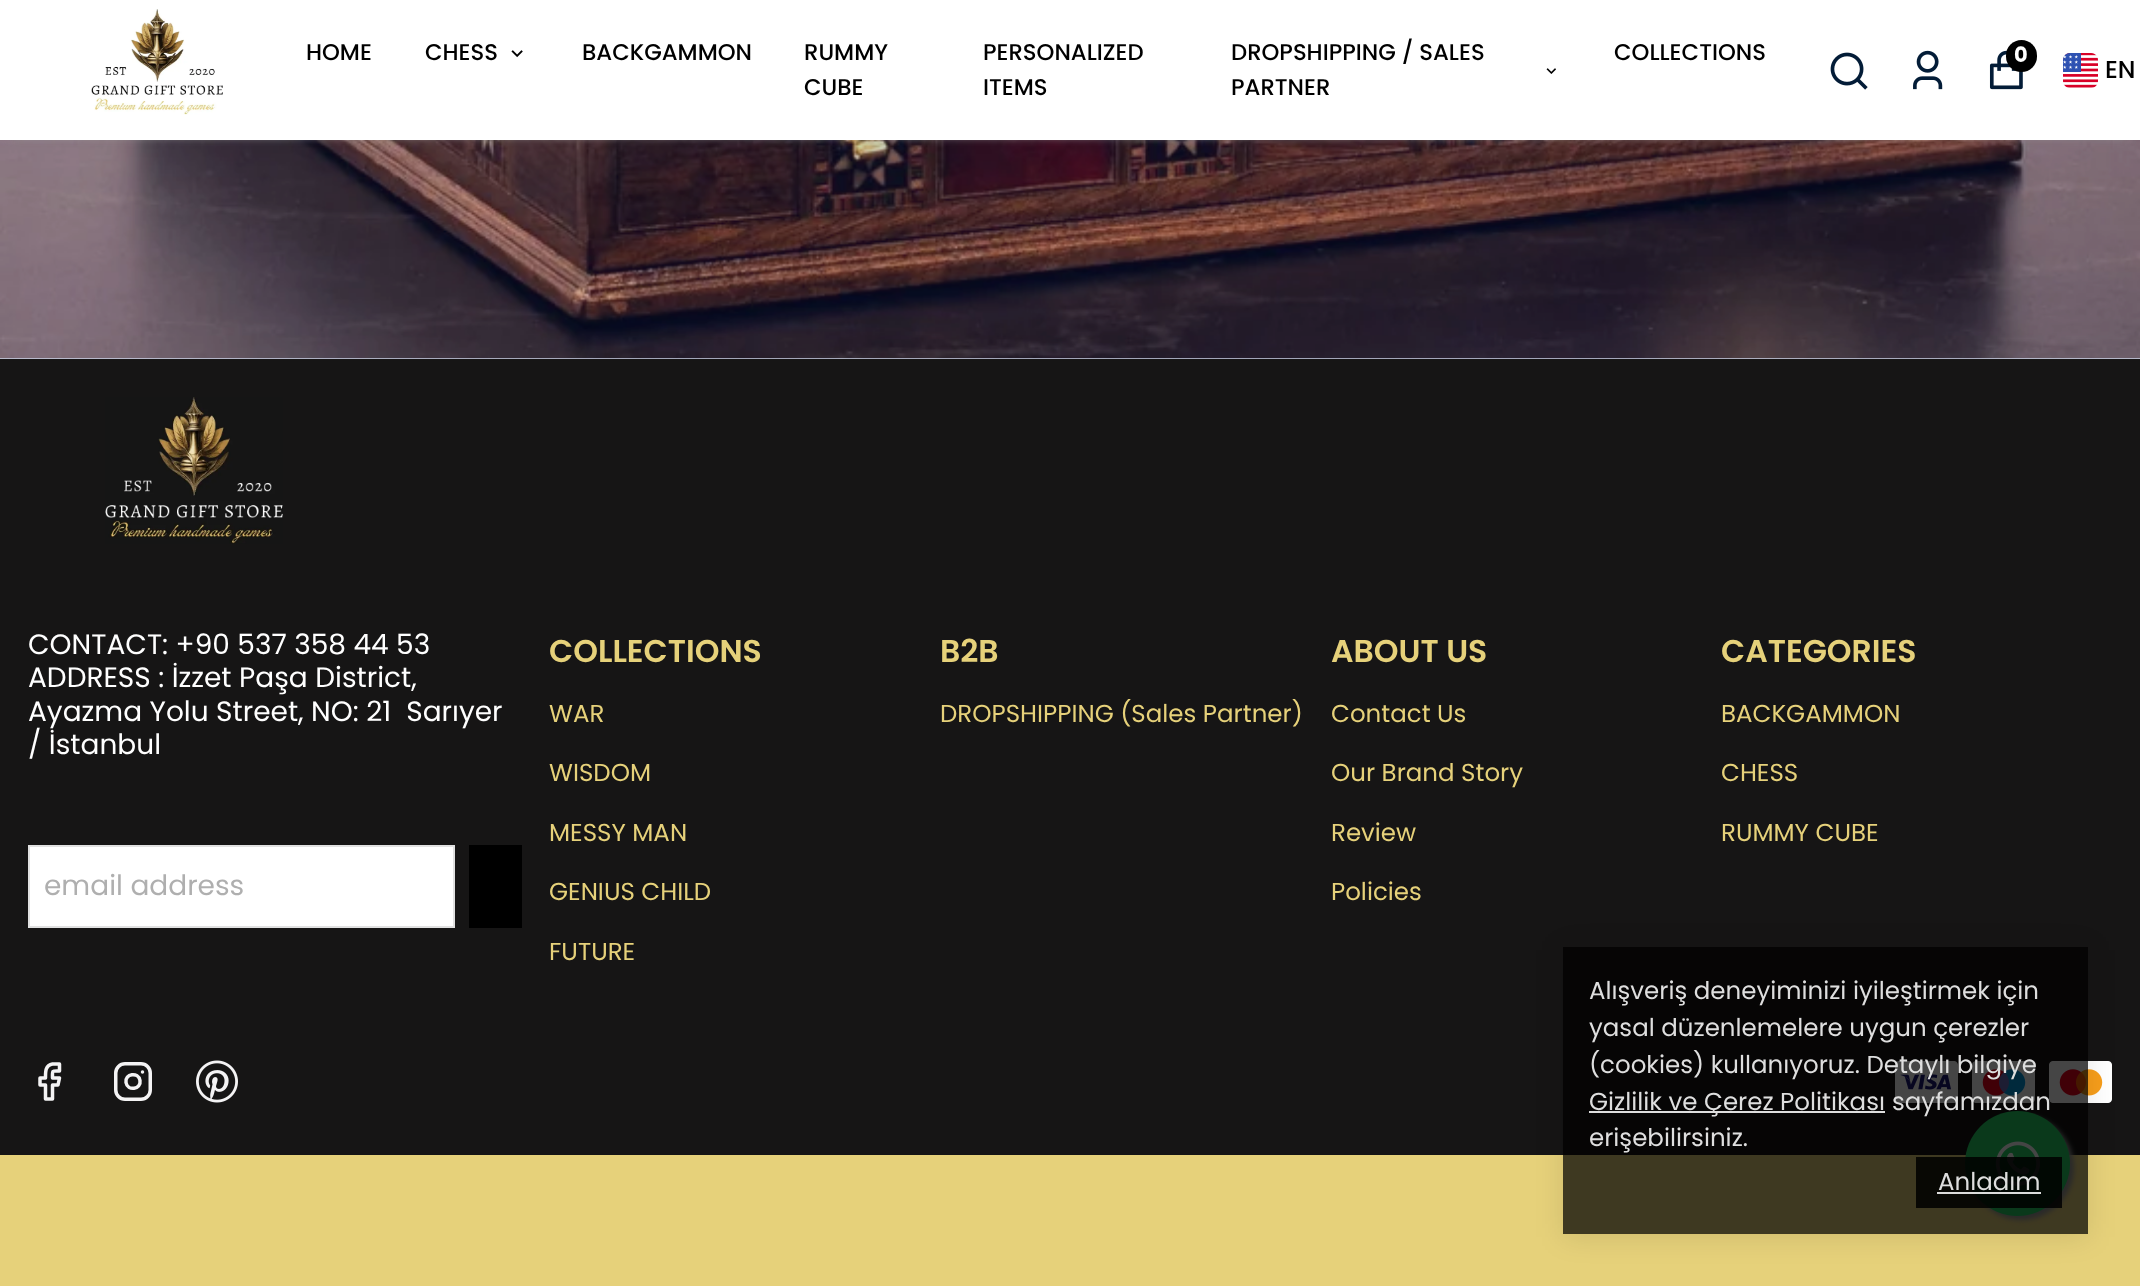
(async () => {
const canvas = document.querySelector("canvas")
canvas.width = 2140
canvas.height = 1286
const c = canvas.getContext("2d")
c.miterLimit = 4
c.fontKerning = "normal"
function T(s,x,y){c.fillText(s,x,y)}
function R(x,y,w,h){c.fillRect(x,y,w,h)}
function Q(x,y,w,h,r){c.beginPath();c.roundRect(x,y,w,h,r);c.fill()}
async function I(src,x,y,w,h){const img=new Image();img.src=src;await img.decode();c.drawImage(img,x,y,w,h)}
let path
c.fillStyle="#ccd4e8"
R(0,0,2140,1286)
await I("8.png",0,140,2140,219)
c.fillStyle="#989898"
c.filter="blur(4.5px)"
c.beginPath()
c.rect(12,21,2116,116)
c.fill()
c.filter="none"
c.fillStyle="#fff"
R(0,0,2140,140)
await I("1.png",91,9,132,106)
c.font="500 22.75px Poppins"
c.fillStyle="#000"
T("HOME",306,60)
T("CHESS",425,60)
await I("2.png",511,50,12,8)
T("BACKGAMMON",582,60)
T("RUMMY",804,60)
T("CUBE",804,95)
T("PERSONALIZED",983,60)
T("ITEMS",983,95)
T("DROPSHIPPING / SALES",1231,60)
await I("3.png",1546,68,10,6)
T("PARTNER",1231,95)
T("COLLECTIONS",1614,60)
await I("4.png",1830,52,38,38)
await I("5.png",1913,50,30,40)
await I("6.png",1989,50,34,40)
Q(2006,40,31,32,15.5)
c.font="bold 21px Poppins"
c.fillStyle="#fff"
T("0",2014,62)
await I("7.png",2063,53,35,35)
c.font="500 24.5px Poppins"
c.fillStyle="#000"
T("EN",2105,78)
c.fillStyle="#161515"
R(0,359,2140,796)
await I("11.png",1895,1061,63,42)
await I("12.png",1972,1061,63,42)
await I("13.png",2049,1061,63,42)
c.fillStyle="#e6d17a"
R(0,1155,2140,131)
c.fillStyle="#999"
c.filter="blur(2.5px)"
c.beginPath()
c.roundRect(1969,1115,105,105,52.5)
c.fill()
c.filter="none"
c.fillStyle="#25d366"
c.beginPath()
c.arc(2017.5,1163.5,52.5,0,7)
c.fill()
await I("14.png",1995,1141,45,46)
c.save()
path = new Path2D("M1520 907h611v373h-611zm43 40h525v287h-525z")
c.clip(path,"evenodd")
c.fillStyle="#0000001a"
c.filter="blur(14px)"
c.beginPath()
c.rect(1563,950,525,287)
c.fill()
c.filter="none"
c.restore()
c.fillStyle="#000000ba"
R(1563,947,525,287)
c.font="24.5px Poppins"
c.fillStyle="#dedede"
T("Alışveriş deneyiminizi iyileştirmek için",1589,999)
T("yasal düzenlemelere uygun çerezler",1589,1036)
T("(cookies) kullanıyoruz. Detaylı bilgiye",1589,1073)
R(1589,1111,296,2)
T("Gizlilik ve Çerez Politikası",1589,1110)
T("sayfamızdan",1892,1110)
T("erişebilirsiniz.",1589,1146)
c.fillStyle="#000000db"
R(1916,1157,146,51)
c.fillStyle="#dedede"
T("Anladım",1938,1190)
c.fillStyle="#ffffffdb"
R(1937,1192,104,2)
await I("9.png",105,397,178,147)
c.font="28px Poppins"
c.fillStyle="#fff"
T("CONTACT: +90 537 358 44 53",28,654)
T("ADDRESS : İzzet Paşa District,",28,687)
T("Ayazma Yolu Street, NO: 21  Sarıyer",28,721)
T("/ İstanbul",28,754)
c.beginPath()
c.rect(29,846,425,81)
c.fill()
c.strokeStyle="#e1e1e1"
c.lineWidth=2
c.stroke()
c.fillStyle="#afafaf"
T("email address",44,895)
c.fillStyle="#000"
R(469,845,53,83)
c.font="600 31.5px Poppins"
c.fillStyle="#e6d17a"
T("COLLECTIONS",549,662)
c.font="24.5px Poppins"
T("WAR",549,722)
T("WISDOM",549,781)
T("MESSY MAN",549,841)
T("GENIUS CHILD",549,900)
T("FUTURE",549,960)
c.font="600 31.5px Poppins"
T("B2B",940,662)
c.font="24.5px Poppins"
T("DROPSHIPPING (Sales Partner)",940,722)
c.font="600 31.5px Poppins"
T("ABOUT US",1331,662)
c.font="24.5px Poppins"
T("Contact Us",1331,722)
T("Our Brand Story",1331,781)
T("Review",1331,841)
T("Policies",1331,900)
c.font="600 31.5px Poppins"
T("CATEGORIES",1721,662)
c.font="24.5px Poppins"
T("BACKGAMMON",1721,722)
T("CHESS",1721,781)
T("RUMMY CUBE",1721,841)
path = new Path2D("M59.5 1064h-7c-7.5 1.5-7 8-7 14h-5.5v7h5.5v14h7v-14h5.5l1.5-7h-7c0-8-1-7 7-7z")
c.strokeStyle="#f4f3f4"
c.lineWidth=3.5
c.lineCap="round"
c.lineJoin="round"
c.stroke(path)
c.beginPath()
c.roundRect(115.75,1063.75,34.5,35.5,9.25)
c.lineJoin="miter"
c.stroke()
path = new Path2D("M140 1080.5c1.5 9-12.5 11-14 2c-1.5-9 12.5-11 14-2zm2.5-8.5h0")
c.lineJoin="round"
c.stroke(path)
await I("10.png",196,1060,42,43)
})()
